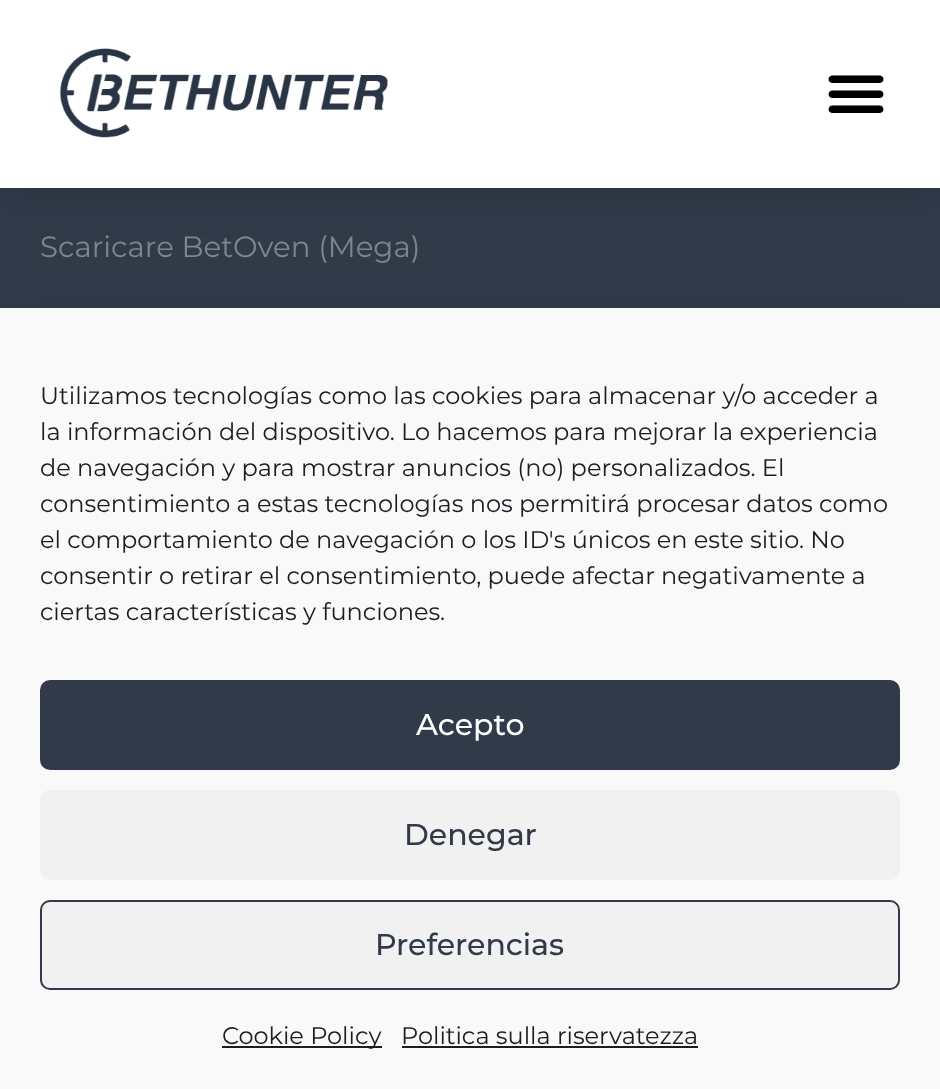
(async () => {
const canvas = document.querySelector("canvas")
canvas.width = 940
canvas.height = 1089
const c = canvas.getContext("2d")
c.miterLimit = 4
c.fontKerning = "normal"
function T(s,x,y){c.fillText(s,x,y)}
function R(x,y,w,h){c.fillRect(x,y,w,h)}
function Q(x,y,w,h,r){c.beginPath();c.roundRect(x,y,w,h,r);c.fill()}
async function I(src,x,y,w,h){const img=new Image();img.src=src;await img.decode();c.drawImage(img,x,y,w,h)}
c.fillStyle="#313a49"
R(0,0,940,1089)
c.fillStyle="#00000026"
c.filter="blur(24px)"
c.beginPath()
c.rect(0,0,940,188)
c.fill()
c.filter="none"
c.fillStyle="#fff"
R(0,0,940,188)
await I("1.png",59,48,329,90)
await I("2.png",828,75,56,38)
c.font="29.25px Montserrat"
c.fillStyle="#7f858e"
T("Scaricare BetOven (Mega)",40,257)
c.fillStyle="#00000030"
c.filter="blur(20px)"
c.beginPath()
c.rect(0,328,940,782)
c.fill()
c.filter="none"
c.fillStyle="#f9f9f9"
R(0,308,940,781)
c.font="24px Montserrat"
c.fillStyle="#191e23"
T("Utilizamos tecnologías como las cookies para almacenar y/o acceder a",40,404)
T("la información del dispositivo. Lo hacemos para mejorar la experiencia",40,440)
T("de navegación y para mostrar anuncios (no) personalizados. El",40,476)
T("consentimiento a estas tecnologías nos permitirá procesar datos como",40,512)
T("el comportamiento de navegación o los ID's únicos en este sitio. No",40,548)
T("consentir o retirar el consentimiento, puede afectar negativamente a",40,584)
T("ciertas características y funciones.",40,620)
c.fillStyle="#313a49"
c.beginPath()
c.roundRect(41,681,858,88,9)
c.fill()
c.strokeStyle="#313a49"
c.lineWidth=2
c.stroke()
c.font="500 30px Montserrat"
c.fillStyle="#fff"
T("Acepto",416,735)
c.fillStyle="#f1f1f1"
Q(40,790,860,90,10)
c.fillStyle="#313a49"
T("Denegar",404,845)
c.fillStyle="#f1f1f1"
c.beginPath()
c.roundRect(41,901,858,88,9)
c.fill()
c.stroke()
c.fillStyle="#313a49"
T("Preferencias",375,955)
c.fillStyle="#191e23"
R(222,1046,160,2)
c.font="24px Montserrat"
T("Cookie Policy",222,1044)
T("Politica sulla riservatezza",401,1044)
R(402,1046,296,2)
})()
